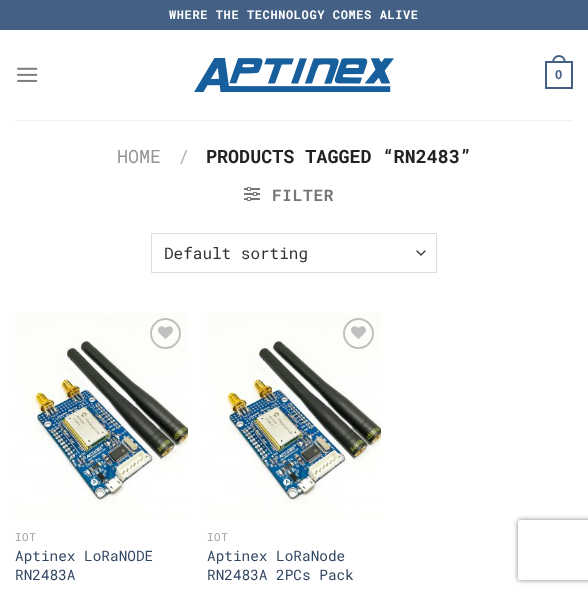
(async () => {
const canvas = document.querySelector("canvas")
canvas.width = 588
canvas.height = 594
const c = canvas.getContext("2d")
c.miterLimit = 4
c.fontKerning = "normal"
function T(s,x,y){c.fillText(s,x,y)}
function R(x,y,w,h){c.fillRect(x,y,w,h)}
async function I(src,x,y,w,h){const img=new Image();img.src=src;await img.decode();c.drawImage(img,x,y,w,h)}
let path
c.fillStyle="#fff"
R(0,0,588,594)
c.fillStyle="#446084"
R(0,0,588,30)
c.letterSpacing="0.6px"
c.font="bold 12px Roboto Mono"
c.fillStyle="#fff"
T("WHERE THE TECHNOLOGY COMES ALIVE",169,19)
await I("1.png",17,67,21,15)
await I("2.png",194,58,200,34)
c.strokeStyle="#446084"
c.lineWidth=2
c.strokeRect(546,62,26,26)
c.fillStyle="#446084"
path = new Path2D("M559 55c4.5 0 7 4 7 8h-14c0-4 2.5-8 7-8zm0 2c3.5 0 5 3 5 6h-10c0-3 1.5-6 5-6z")
c.fill(path,"evenodd")
c.letterSpacing="0px"
c.font="bold 13px Liberation Sans"
T("0",555,79)
c.fillStyle="#f1f1f1"
R(15,120,558,1)
c.font="18.4px Roboto Mono"
c.fillStyle="#949494"
T("HOME",117,163)
c.fillStyle="#b2b2b2"
T("/",178,163)
c.font="bold 18.4px Roboto Mono"
c.fillStyle="#222"
T("PRODUCTS TAGGED “RN2483”",206,163)
await I("3.png",244,187,16,14)
c.letterSpacing="0.75px"
c.font="bold 16px Roboto Mono"
c.fillStyle="#777"
T("FILTER",272,201)
path = new Path2D("M417 251l4 4l4-4")
c.strokeStyle="#333"
c.lineWidth=1.3
c.lineCap="round"
c.lineJoin="round"
c.stroke(path)
c.strokeStyle="#ddd"
c.lineWidth=1
c.lineJoin="miter"
c.strokeRect(151.5,233.5,285,39)
c.letterSpacing="0px"
c.font="16px Roboto Mono"
c.fillStyle="#333"
T("Default sorting",164,259)
await I("4.png",15,313,173,207)
c.beginPath()
c.arc(165.5,333.5,14.5,0,7)
c.strokeStyle="#c0c0c0"
c.lineWidth=2
c.stroke()
await I("5.png",158,326,15,13)
c.letterSpacing="0.5px"
c.font="11px Roboto Mono"
c.fillStyle="#a0a0a0"
T("IOT",15,541)
c.letterSpacing="0px"
c.font="14.4px Roboto Mono"
c.fillStyle="#334862"
T("Aptinex LoRaNODE",15,561)
T("RN2483A",15,580)
await I("6.png",207,313,174,207)
c.beginPath()
c.arc(358.5,333.5,14.5,0,7)
c.stroke()
await I("5.png",351,326,15,13)
c.letterSpacing="0.5px"
c.font="11px Roboto Mono"
c.fillStyle="#a0a0a0"
T("IOT",207,541)
c.letterSpacing="0px"
c.font="14.4px Roboto Mono"
c.fillStyle="#334862"
T("Aptinex LoRaNode",207,561)
T("RN2483A 2PCs Pack",207,580)
c.save()
path = new Path2D("M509 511h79v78h-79zm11 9h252c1 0 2 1 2 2v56c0 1-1 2-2 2h-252c-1 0-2-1-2-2v-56c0-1 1-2 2-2z")
c.clip(path,"evenodd")
c.fillStyle="#808080"
c.filter="blur(2.5px)"
c.beginPath()
c.roundRect(518,520,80,60,2)
c.fill()
c.filter="none"
c.restore()
})()
